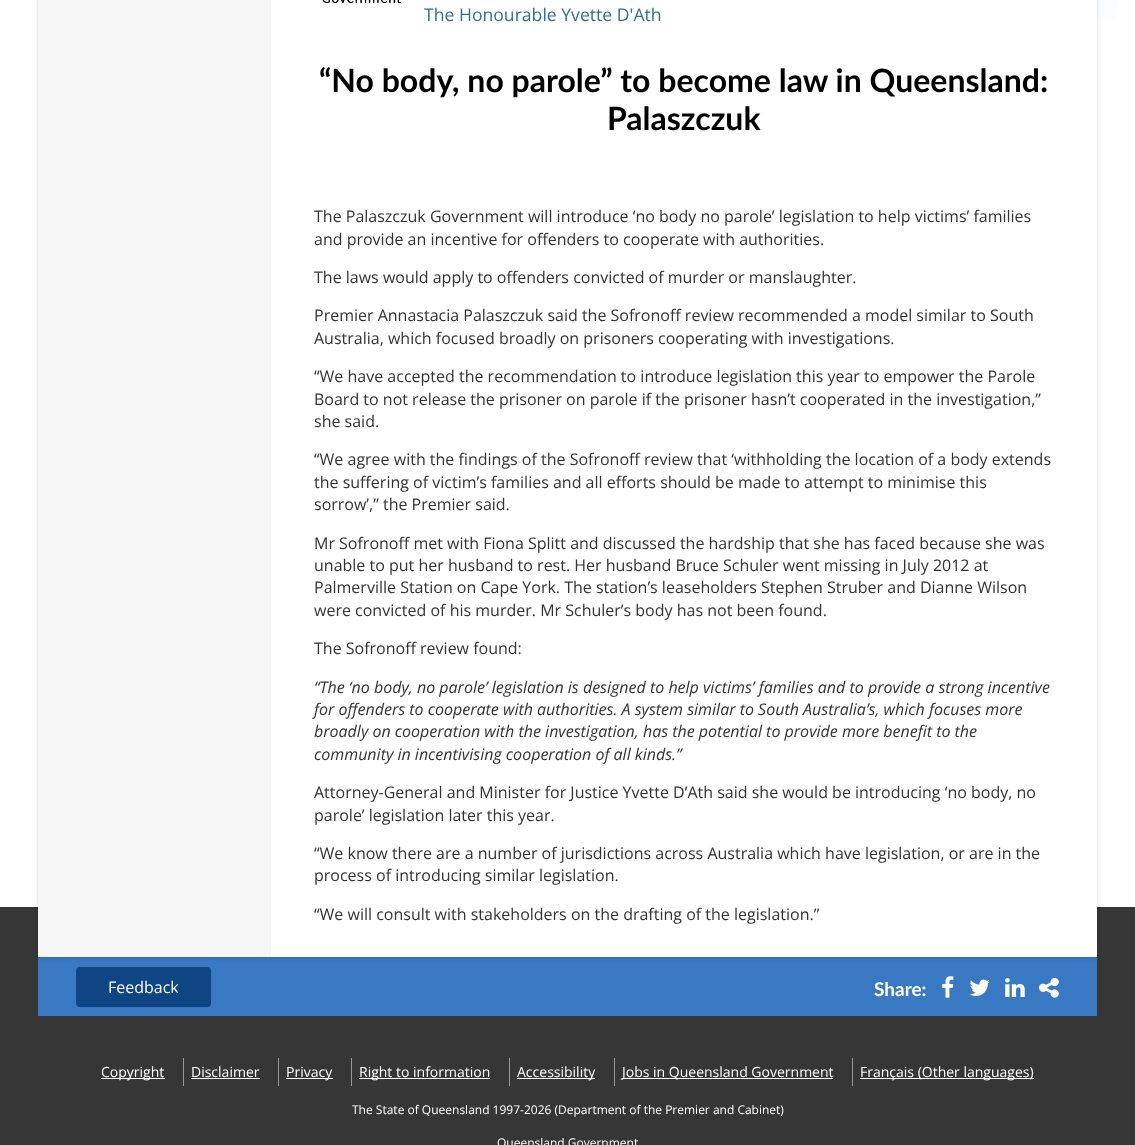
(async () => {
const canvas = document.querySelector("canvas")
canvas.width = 1135
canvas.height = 1145
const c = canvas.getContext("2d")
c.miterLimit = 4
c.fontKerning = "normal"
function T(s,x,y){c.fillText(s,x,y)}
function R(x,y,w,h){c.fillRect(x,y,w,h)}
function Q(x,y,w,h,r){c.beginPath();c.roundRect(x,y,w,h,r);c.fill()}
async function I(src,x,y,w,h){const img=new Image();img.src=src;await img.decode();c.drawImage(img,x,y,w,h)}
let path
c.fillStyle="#fff"
R(0,0,1135,1145)
await I("1.png",1097,0,21,21)
c.fillStyle="#363636"
R(0,907,1135,238)
c.fillStyle="#fff"
R(271,907,826,50)
c.fillStyle="#3978c2"
R(38,957,1059,59)
c.save()
path = new Path2D("M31 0h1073v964h-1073zm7-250h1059v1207h-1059z")
c.clip(path,"evenodd")
c.fillStyle="#00000026"
c.filter="blur(2px)"
c.beginPath()
c.rect(38,-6,1059,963)
c.fill()
c.filter="none"
c.restore()
c.fillStyle="#f6f6f6"
R(38,0,233,957)
await I("2.png",322,0,79,3)
c.font="17.6px Open Sans"
c.fillStyle="#31708f"
T("The Honourable Yvette D'Ath",424,21)
c.font="bold 32px Lato"
c.fillStyle="#000"
T("“No body, no parole” to become law in Queensland:",319,92)
T("Palaszczuk",607,130)
c.font="16px Open Sans"
c.fillStyle="#333"
T("The Palaszczuk Government will introduce ‘no body no parole’ legislation to help victims’ families",314,222)
T("and provide an incentive for offenders to cooperate with authorities.",314,245)
T("The laws would apply to offenders convicted of murder or manslaughter.",314,283)
T("Premier Annastacia Palaszczuk said the Sofronoff review recommended a model similar to South",314,321)
T("Australia, which focused broadly on prisoners cooperating with investigations.",314,344)
T("“We have accepted the recommendation to introduce legislation this year to empower the Parole",314,382)
T("Board to not release the prisoner on parole if the prisoner hasn’t cooperated in the investigation,”",314,405)
T("she said.",314,427)
T("“We agree with the findings of the Sofronoff review that ‘withholding the location of a body extends",314,465)
T("the suffering of victim’s families and all efforts should be made to attempt to minimise this",314,488)
T("sorrow’,” the Premier said.",314,510)
T("Mr Sofronoff met with Fiona Splitt and discussed the hardship that she has faced because she was",314,549)
T("unable to put her husband to rest. Her husband Bruce Schuler went missing in July 2012 at",314,571)
T("Palmerville Station on Cape York. The station’s leaseholders Stephen Struber and Dianne Wilson",314,593)
T("were convicted of his murder. Mr Schuler’s body has not been found.",314,616)
T("The Sofronoff review found:",314,654)
c.font="italic 16px Open Sans"
T("“The ‘no body, no parole’ legislation is designed to help victims’ families and to provide a strong incentive",314,693)
T("for offenders to cooperate with authorities. A system similar to South Australia’s, which focuses more",314,715)
T("broadly on cooperation with the investigation, has the potential to provide more benefit to the",314,737)
T("community in incentivising cooperation of all kinds.”",314,760)
c.font="16px Open Sans"
T("Attorney-General and Minister for Justice Yvette D’Ath said she would be introducing ‘no body, no",314,798)
T("parole’ legislation later this year.",314,821)
T("“We know there are a number of jurisdictions across Australia which have legislation, or are in the",314,859)
T("process of introducing similar legislation.",314,881)
T("“We will consult with stakeholders on the drafting of the legislation.”",314,920)
c.fillStyle="#104584"
Q(76,967,135,40,4)
c.fillStyle="#fff"
T("Feedback",108,993)
c.font="bold 19px Lato"
T("Share:",874,996)
await I("3.png",942,976,12,22)
await I("4.png",969,979,21,17)
await I("5.png",1005,978,20,19)
await I("6.png",1039,977,20,21)
R(101,1078,64,1)
c.font="14px Open Sans"
T("Copyright",101,1077)
c.fillStyle="#999"
R(183,1058,1,28)
c.fillStyle="#fff"
T("Disclaimer",191,1077)
R(191,1078,69,1)
c.fillStyle="#999"
R(278,1058,1,28)
c.fillStyle="#fff"
R(286,1078,47,1)
T("Privacy",286,1077)
c.fillStyle="#999"
R(351,1058,1,28)
c.fillStyle="#fff"
R(359,1078,131,1)
T("Right to information",359,1077)
c.fillStyle="#999"
R(509,1058,1,28)
c.fillStyle="#fff"
R(517,1078,78,1)
T("Accessibility",517,1077)
c.fillStyle="#999"
R(614,1058,1,28)
c.fillStyle="#fff"
R(622,1078,211,1)
T("Jobs in Queensland Government",622,1077)
c.fillStyle="#999"
R(852,1058,1,28)
c.fillStyle="#fff"
R(860,1078,174,1)
T("Français (Other languages)",860,1077)
c.font="12px Open Sans"
T("The State of Queensland 1997-2026 (Department of the Premier and Cabinet)",352,1114)
T("Queensland Government",497,1147)
})()
